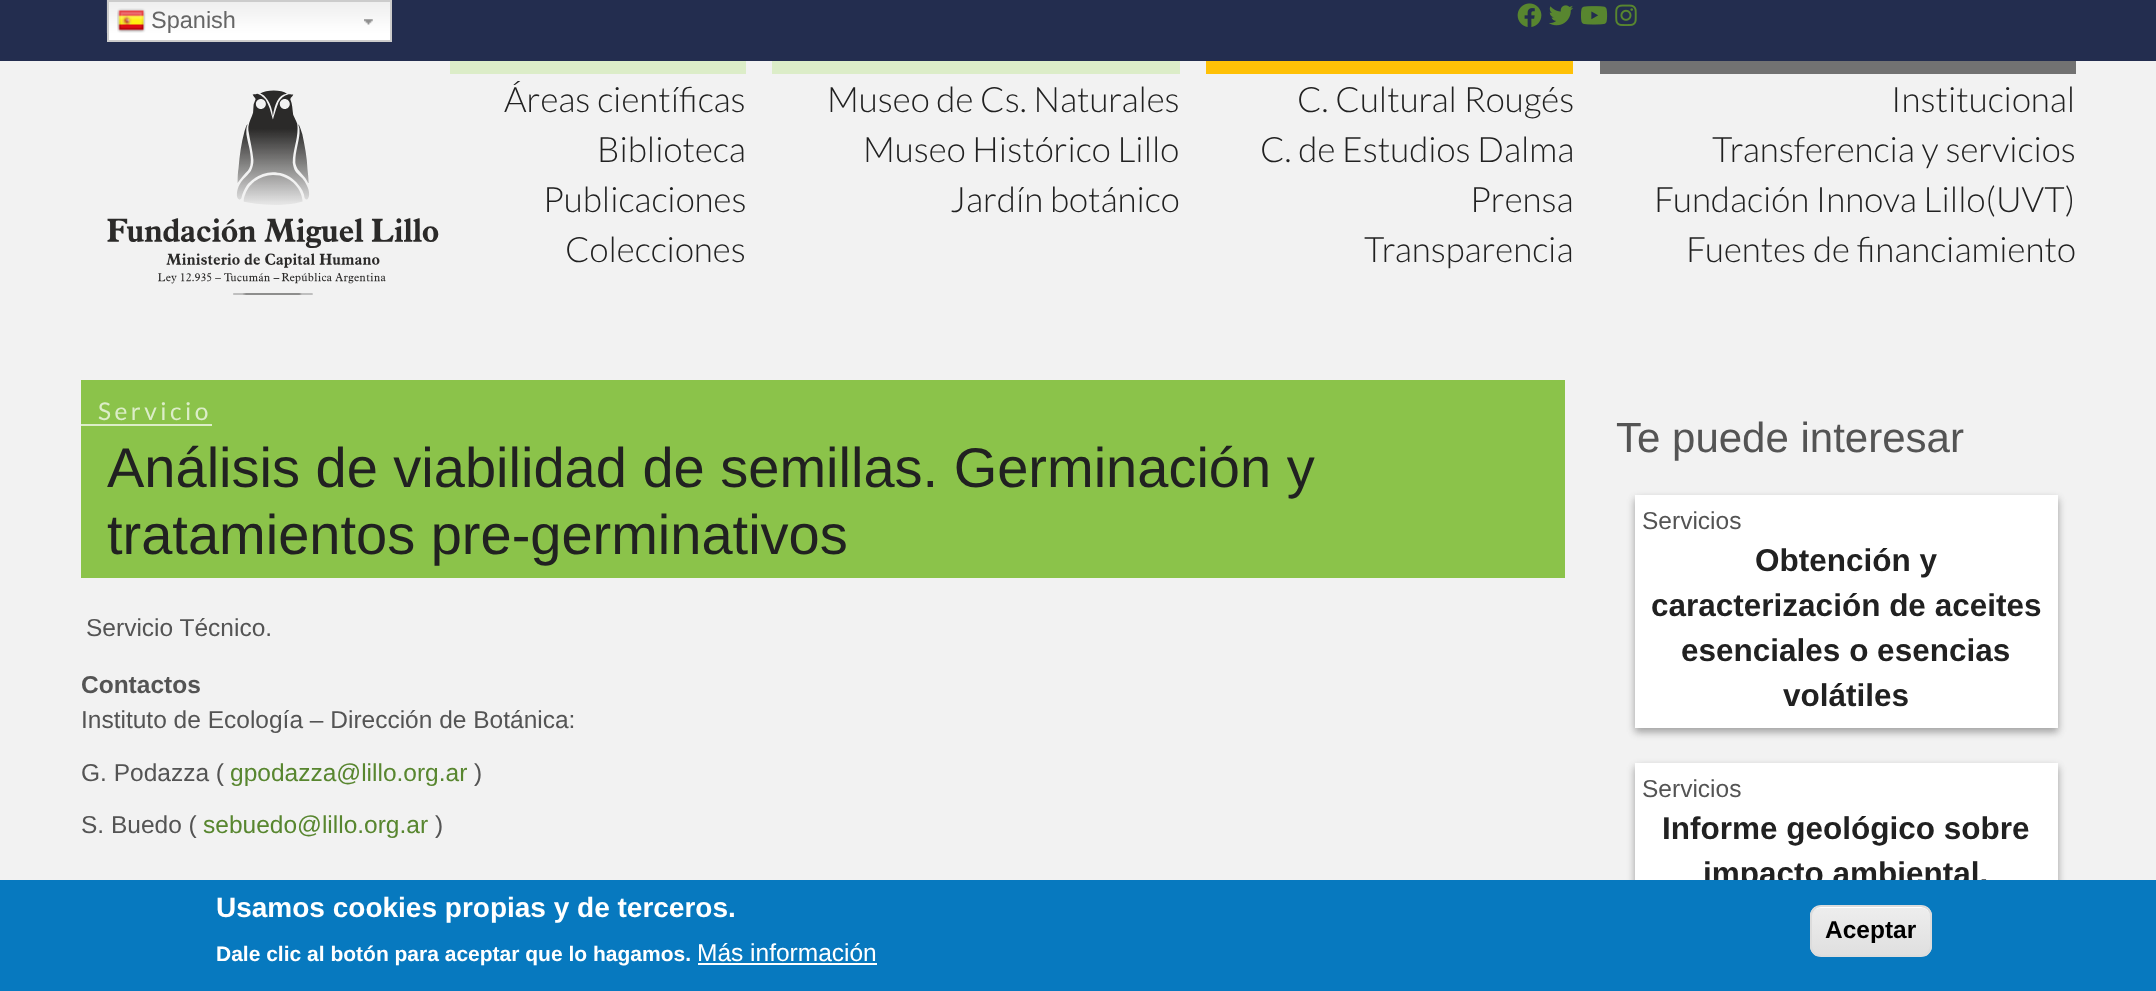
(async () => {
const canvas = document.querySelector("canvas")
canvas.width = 2156
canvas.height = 991
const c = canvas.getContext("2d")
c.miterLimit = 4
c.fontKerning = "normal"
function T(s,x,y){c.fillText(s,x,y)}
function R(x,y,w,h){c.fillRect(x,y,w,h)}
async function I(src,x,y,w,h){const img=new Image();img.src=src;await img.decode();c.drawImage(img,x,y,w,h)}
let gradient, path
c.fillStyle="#f2f2f2"
R(0,0,2156,991)
c.fillStyle="#232d4f"
R(0,0,2156,61)
c.fillStyle="#fff"
R(109,33,281,7)
await I("1.png",106,0,284,33)
await I("2.png",364,19,9,6)
c.strokeStyle="#ccc"
c.lineWidth=2
c.strokeRect(108,1,283,40)
await I("3.png",117,8,29,25)
c.font="23.5px Liberation Sans"
c.fillStyle="#666"
T("Spanish",151,28)
await I("4.png",1517,3,25,24)
await I("5.png",1549,5,24,21)
await I("6.png",1581,6,27,19)
await I("7.png",1615,4,22,22)
await I("8.png",107,90,332,205)
c.fillStyle="#dcedc8"
R(450,61,296,13)
c.font="300 35px Lato"
c.fillStyle="#212121"
T("Áreas científicas",504,112)
T("Biblioteca",597,162)
T("Publicaciones",543,212)
T("Colecciones",565,262)
c.fillStyle="#dcedc8"
R(772,61,408,13)
c.fillStyle="#212121"
T("Museo de Cs. Naturales",827,112)
T("Museo Histórico Lillo",863,162)
T("Jardín botánico",950,212)
c.fillStyle="#ffc107"
R(1206,61,367,13)
c.fillStyle="#212121"
T("C. Cultural Rougés",1297,112)
T("C. de Estudios Dalma",1260,162)
T("Prensa",1470,212)
T("Transparencia",1364,262)
c.fillStyle="#727272"
R(1600,61,476,13)
c.fillStyle="#212121"
T("Institucional",1891,112)
T("Transferencia y servicios",1712,162)
T("Fundación Innova Lillo(UVT)",1654,212)
T("Fuentes de financiamiento",1686,262)
c.fillStyle="#8bc34a"
R(81,380,1484,198)
c.fillStyle="#dcedc8"
R(81,424,131,2)
c.letterSpacing="3.5px"
c.font="24.5px Lato"
T("Servicio",98,420)
c.letterSpacing="0px"
c.font="56px Liberation Sans"
c.fillStyle="#212121"
T("Análisis de viabilidad de semillas. Germinación y",107,487)
T("tratamientos pre-germinativos",107,554)
c.font="24.5px Liberation Sans"
c.fillStyle="#545454"
T("Servicio Técnico.",86,636)
c.font="bold 24.5px Liberation Sans"
T("Contactos",81,693)
c.font="24.5px Liberation Sans"
T("Instituto de Ecología – Dirección de Botánica:",81,728)
T("G. Podazza (",81,781)
c.fillStyle="#58862f"
T("gpodazza@lillo.org.ar",230,781)
c.fillStyle="#545454"
T(")",474,781)
T("S. Buedo (",81,833)
c.fillStyle="#58862f"
T("sebuedo@lillo.org.ar",203,833)
c.fillStyle="#545454"
T(")",435,833)
c.font="42px Liberation Sans"
T("Te puede interesar",1616,452)
c.fillStyle="#0000001f"
c.filter="blur(5px)"
c.beginPath()
c.rect(1635,499,423,233)
c.fill()
c.filter="none"
c.fillStyle="#0000003d"
c.filter="blur(3.5px)"
c.beginPath()
c.rect(1635,499,423,233)
c.fill()
c.filter="none"
c.fillStyle="#fff"
R(1635,495,423,233)
c.font="24.5px Liberation Sans"
c.fillStyle="#545454"
T("Servicios",1642,529)
c.font="bold 31.5px Liberation Sans"
c.fillStyle="#212121"
T("Obtención y",1755,571)
T("caracterización de aceites",1651,616)
T("esenciales o esencias",1681,661)
T("volátiles",1783,706)
c.fillStyle="#0000001f"
c.filter="blur(5px)"
c.beginPath()
c.rect(1635,767,423,175)
c.fill()
c.filter="none"
c.fillStyle="#0000003d"
c.filter="blur(3.5px)"
c.beginPath()
c.rect(1635,767,423,175)
c.fill()
c.filter="none"
c.fillStyle="#fff"
R(1635,763,423,117)
c.font="24.5px Liberation Sans"
c.fillStyle="#545454"
T("Servicios",1642,797)
c.font="bold 31.5px Liberation Sans"
c.fillStyle="#212121"
T("Informe geológico sobre",1662,839)
T("impacto ambiental.",1703,884)
c.fillStyle="#0779bf"
R(0,880,2156,111)
c.font="bold 28px Liberation Sans"
c.fillStyle="#fff"
T("Usamos cookies propias y de terceros.",216,917)
c.font="bold 21px Liberation Sans"
T("Dale clic al botón para aceptar que lo hagamos.",216,961)
c.font="24.5px Liberation Sans"
T("Más información",697,961)
R(698,963,179,2)
c.save()
c.beginPath()
c.roundRect(1810,905,122,52,11)
c.clip()
gradient = c.createLinearGradient(1871,907,1871,956)
gradient.addColorStop(.05,"#ededed")
gradient.addColorStop(1,"#dfdfdf")
c.fillStyle = gradient
R(1810,907,122,49)
c.restore()
path = new Path2D("M1820 908h102c4 0 8 4 8 9c0-14-17-10-26-10h-67c-9 0-26-4-26 10c0-5 4-9 9-9z")
c.fill(path)
c.beginPath()
c.roundRect(1811,906,120,50,10)
c.strokeStyle="#dcdcdc"
c.stroke()
c.font="bold 24.5px Liberation Sans"
c.fillStyle="#000"
T("Aceptar",1825,938)
})()
